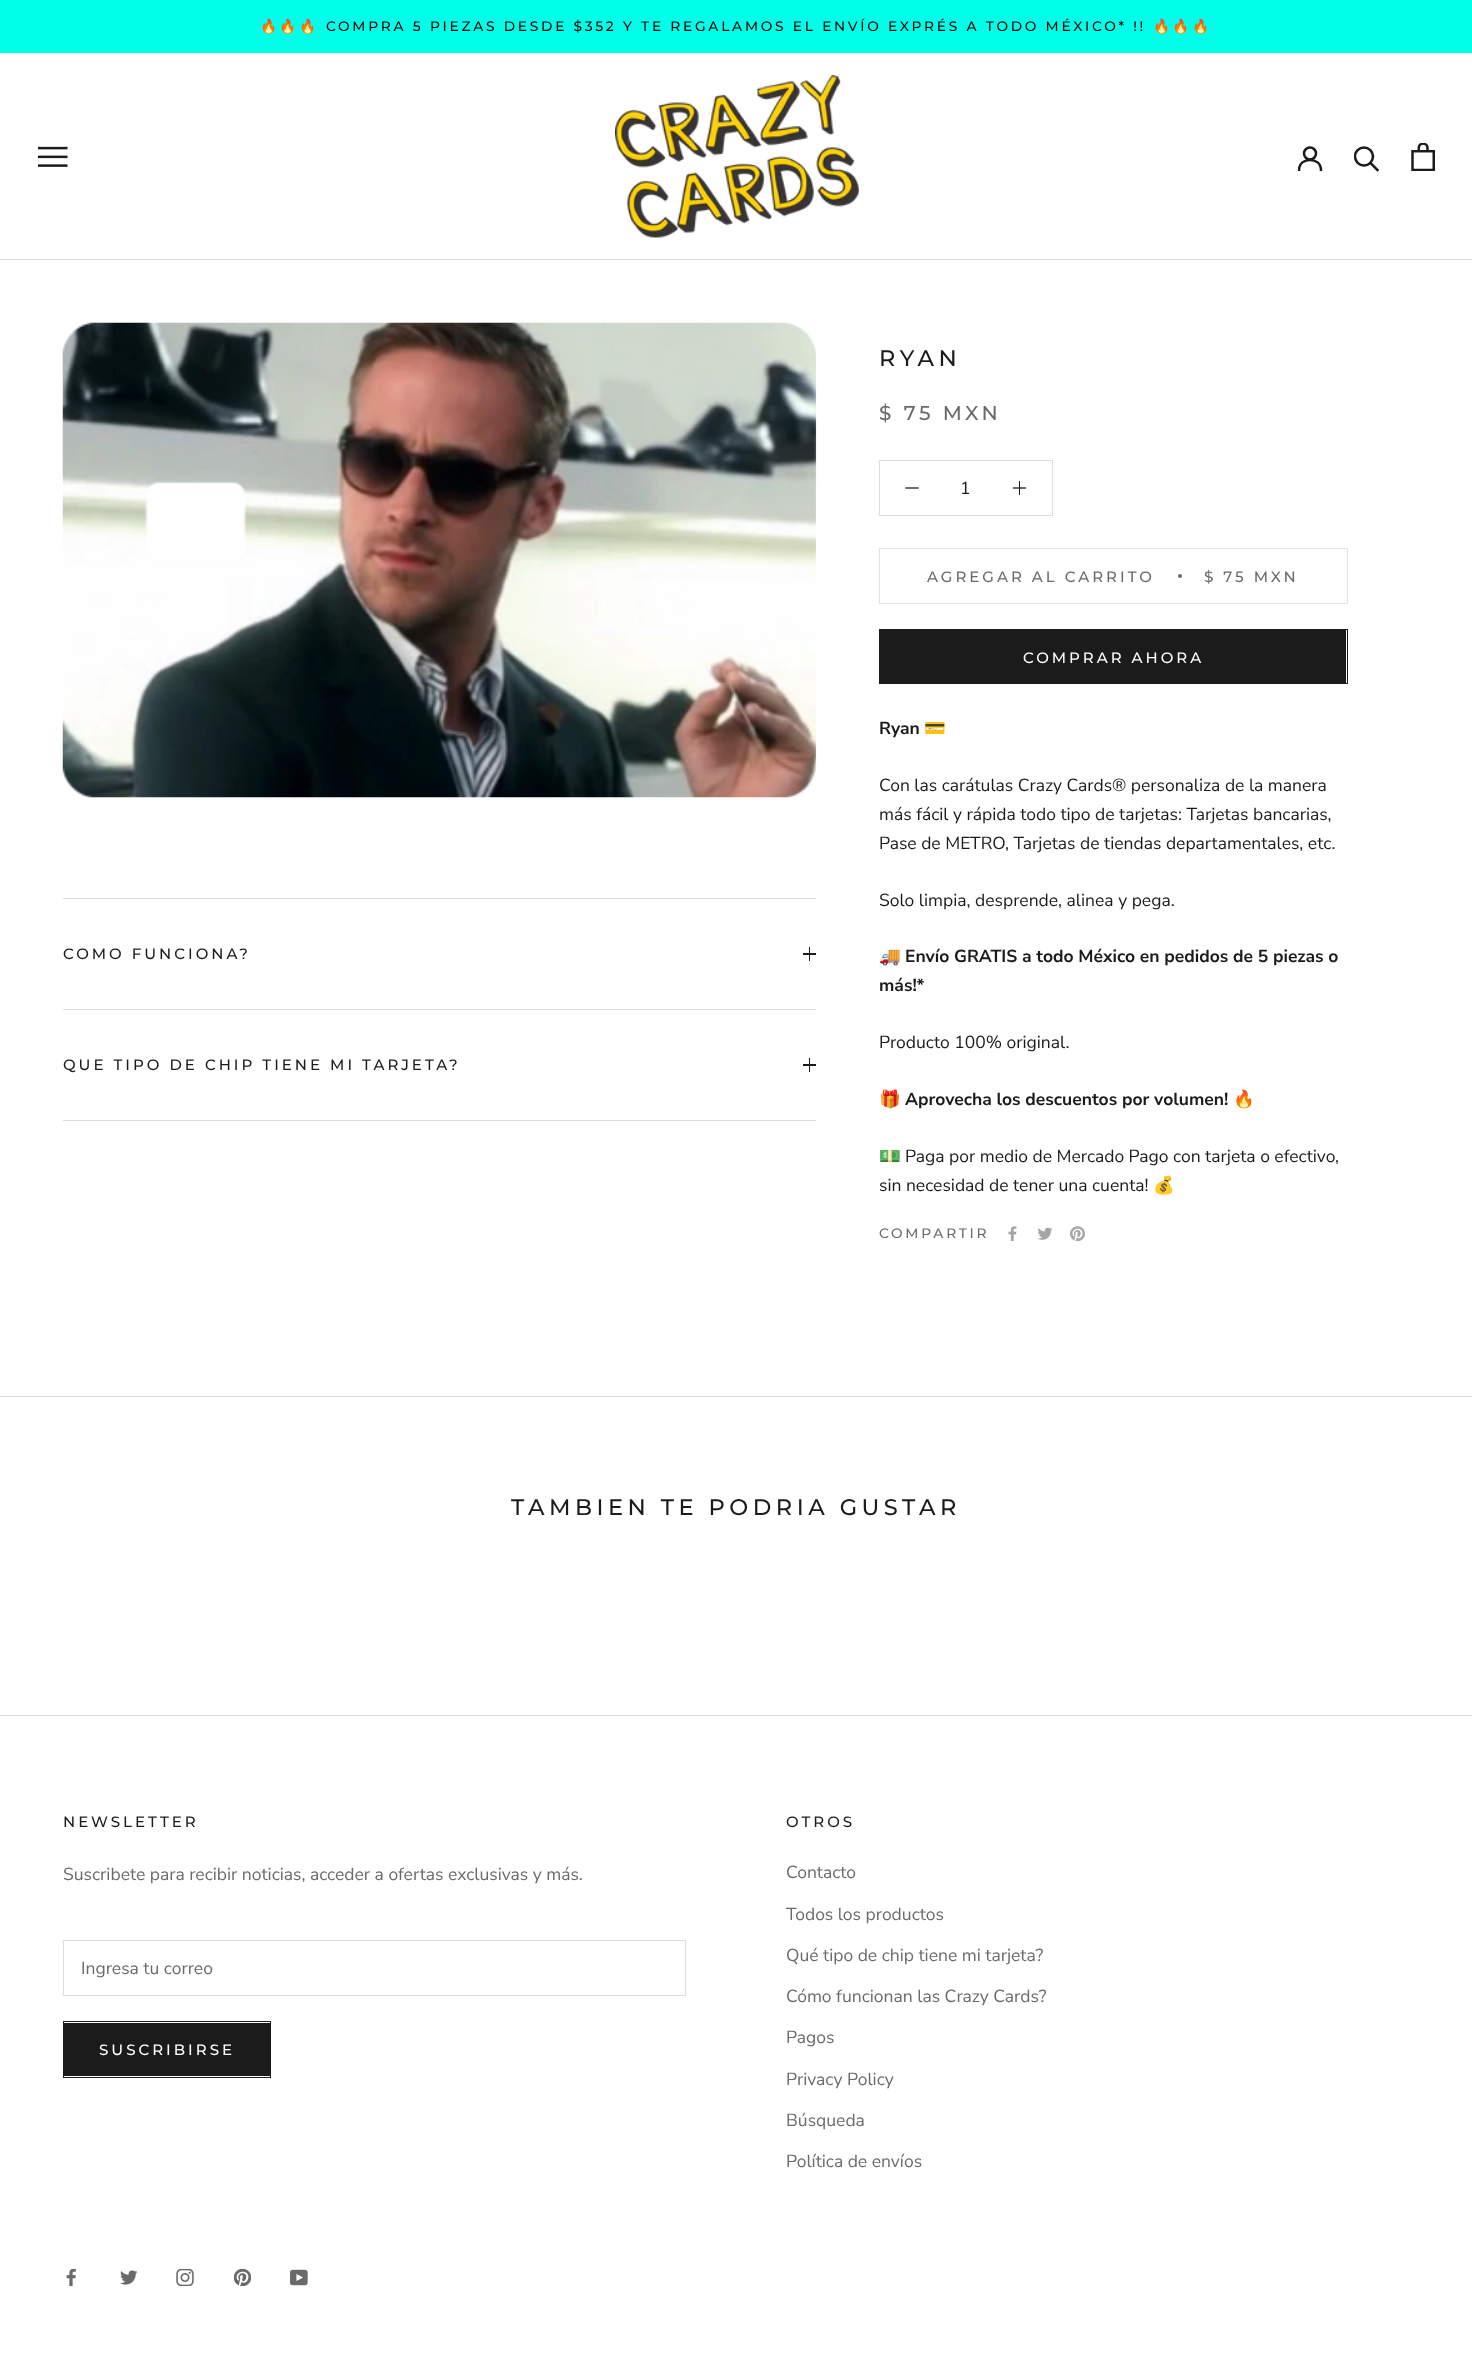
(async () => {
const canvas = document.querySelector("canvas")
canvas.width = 1472
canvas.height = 2371
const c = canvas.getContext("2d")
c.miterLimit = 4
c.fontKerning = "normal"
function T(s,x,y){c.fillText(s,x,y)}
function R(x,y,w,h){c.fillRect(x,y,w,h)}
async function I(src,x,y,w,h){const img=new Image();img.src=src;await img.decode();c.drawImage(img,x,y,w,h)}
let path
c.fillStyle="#fff"
R(0,0,1472,2371)
c.fillStyle="#00ffe8"
R(0,0,1472,53)
c.letterSpacing="2.75px"
c.font="13.75px Noto Color Emoji"
c.fillStyle="#030303"
T("🔥🔥🔥",260,31)
c.font="500 13.75px Montserrat"
T("COMPRA 5 PIEZAS DESDE $352 Y TE REGALAMOS EL ENVÍO EXPRÉS A TODO MÉXICO* !!",326,31)
c.font="13.75px Noto Color Emoji"
T("🔥🔥🔥",1153,31)
c.fillStyle="#ddd"
R(0,259,1472,1)
await I("1.png",38,146,30,21)
await I("2.png",615,75,244,163)
c.save()
c.beginPath()
c.rect(1298,146,25,25)
c.clip()
path = new Path2D("M1299 170c0-13.5 22-13.5 22 0")
c.strokeStyle="#1c1b1b"
c.lineWidth=2.5
c.lineCap="square"
c.stroke(path)
c.restore()
c.beginPath()
c.arc(1310,153.5,6,0,7)
c.strokeStyle="#1c1b1b"
c.lineWidth=2.5
c.stroke()
path = new Path2D("M1377.5 170l-7-7")
c.lineCap="square"
c.stroke(path)
c.save()
c.beginPath()
c.rect(1354,146,26,27)
c.clip()
c.beginPath()
c.arc(1364,156.5,9,0,7)
c.stroke()
c.restore()
await I("3.png",1411,143,24,28)
await I("4.png",62,322,755,476)
c.letterSpacing="4.5px"
c.font="500 22.5px Montserrat"
c.fillStyle="#1c1b1b"
T("RYAN",879,366)
c.letterSpacing="3.5px"
c.font="500 20px Montserrat"
c.fillStyle="#6a6a6a"
T("$ 75 MXN",879,420)
c.strokeStyle="#ddd"
c.lineWidth=1
c.strokeRect(879.5,460.5,173,55)
path = new Path2D("M906 488h12")
c.strokeStyle="#1c1b1b"
c.lineWidth=1.3
c.stroke(path)
c.letterSpacing="0px"
c.font="17.5px Nunito Sans"
c.fillStyle="#1c1b1b"
T("1",960,494)
R(1019,481,1,14)
c.save()
c.beginPath()
c.rect(1013,481,13,14)
c.clip()
path = new Path2D("M1013.5 488h12")
c.stroke(path)
c.restore()
c.strokeStyle="#e1e1e1"
c.lineWidth=1
c.strokeRect(879.5,548.5,468,55)
c.letterSpacing="3px"
c.font="500 15px Montserrat"
c.fillStyle="#6a6a6a"
T("AGREGAR AL CARRITO",927,582)
c.beginPath()
c.arc(1180,576,2,0,7)
c.fill()
T("$ 75 MXN",1204,582)
c.strokeStyle="#1c1b1b"
c.strokeRect(879.5,629.5,468,54)
c.fillStyle="#1c1b1b"
R(880,630,466,53)
c.fillStyle="#fff"
T("COMPRAR AHORA",1023,663)
c.letterSpacing="0px"
c.font="bold 17.5px Nunito Sans"
c.fillStyle="#1c1b1b"
T("Ryan",879,734)
c.font="bold 17.5px Noto Color Emoji"
T("💳",924,734)
c.font="17.5px Nunito Sans"
T("Con las carátulas Crazy Cards® personaliza de la manera",879,791)
T("más fácil y rápida todo tipo de tarjetas: Tarjetas bancarias,",879,820)
T("Pase de METRO, Tarjetas de tiendas departamentales, etc.",879,849)
T("Solo limpia, desprende, alinea y pega.",879,906)
c.font="bold 17.5px Noto Color Emoji"
T("🚚",879,962)
c.font="bold 17.5px Nunito Sans"
T("Envío GRATIS a todo México en pedidos de 5 piezas o",905,962)
T("más!*",879,991)
c.font="17.5px Nunito Sans"
T("Producto 100% original.",879,1048)
c.font="bold 17.5px Noto Color Emoji"
T("🎁",879,1105)
c.font="bold 17.5px Nunito Sans"
T("Aprovecha los descuentos por volumen!",905,1105)
c.font="bold 17.5px Noto Color Emoji"
T("🔥",1233,1105)
c.font="17.5px Noto Color Emoji"
T("💵",879,1162)
c.font="17.5px Nunito Sans"
T("Paga por medio de Mercado Pago con tarjeta o efectivo,",905,1162)
T("sin necesidad de tener una cuenta!",879,1191)
c.font="17.5px Noto Color Emoji"
T("💰",1153,1191)
c.letterSpacing="2.75px"
c.font="500 13.75px Montserrat"
c.fillStyle="#6a6a6a"
T("COMPARTIR",879,1238)
await I("5.png",1008,1226,9,15)
await I("6.png",1038,1227,15,13)
await I("7.png",1070,1226,15,15)
c.fillStyle="#ddd"
R(63,898,753,1)
R(63,1009,753,1)
c.letterSpacing="3px"
c.font="500 15px Montserrat"
c.fillStyle="#1c1b1b"
T("COMO FUNCIONA?",63,959)
R(809,947,1,14)
R(803,953,13,2)
c.fillStyle="#ddd"
R(63,1120,753,1)
c.fillStyle="#1c1b1b"
T("QUE TIPO DE CHIP TIENE MI TARJETA?",63,1070)
R(809,1058,1,14)
R(803,1064,13,2)
c.fillStyle="#ddd"
R(0,1396,1472,1)
c.letterSpacing="4.5px"
c.font="500 22.5px Montserrat"
c.fillStyle="#1c1b1b"
T("TAMBIEN TE PODRIA GUSTAR",511,1515)
c.fillStyle="#ddd"
R(0,1715,1472,1)
c.letterSpacing="3px"
c.font="500 15px Montserrat"
c.fillStyle="#1c1b1b"
T("NEWSLETTER",63,1827)
c.letterSpacing="0px"
c.font="17.5px Nunito Sans"
c.fillStyle="#6a6a6a"
T("Suscribete para recibir noticias, acceder a ofertas exclusivas y más.",63,1880)
c.strokeStyle="#ddd"
c.strokeRect(63.5,1940.5,622,55)
T("Ingresa tu correo",81,1974)
c.strokeStyle="#1c1b1b"
c.strokeRect(63.5,2021.5,207,56)
c.fillStyle="#1c1b1b"
R(64,2023,206,53)
c.letterSpacing="3px"
c.font="500 15px Montserrat"
c.fillStyle="#fff"
T("SUSCRIBIRSE",99,2055)
c.fillStyle="#1c1b1b"
T("OTROS",786,1827)
c.letterSpacing="0px"
c.font="17.5px Nunito Sans"
c.fillStyle="#6a6a6a"
T("Contacto",786,1878)
T("Todos los productos",786,1920)
T("Qué tipo de chip tiene mi tarjeta?",786,1961)
T("Cómo funcionan las Crazy Cards?",786,2002)
T("Pagos",786,2043)
T("Privacy Policy",786,2085)
T("Búsqueda",786,2126)
T("Política de envíos",786,2167)
await I("8.png",66,2269,10,17)
await I("9.png",120,2270,18,15)
await I("10.png",176,2269,18,17)
await I("11.png",234,2269,17,17)
await I("12.png",290,2269,18,17)
})()
